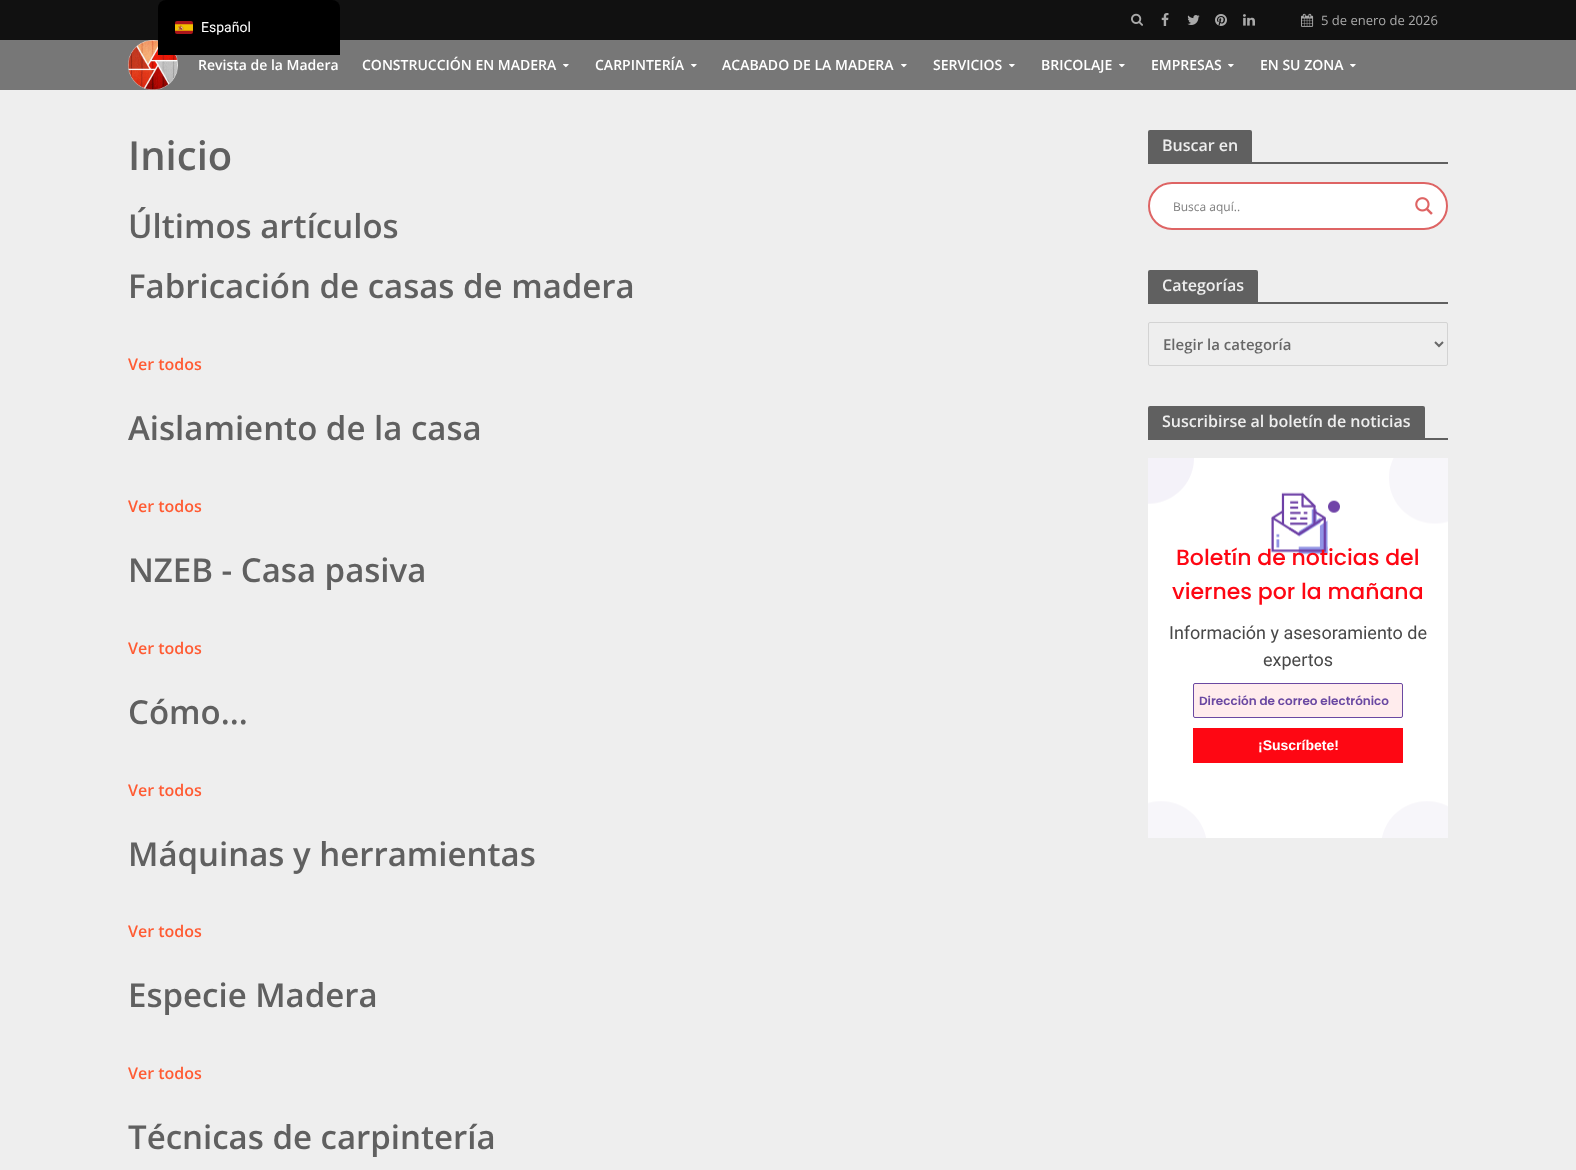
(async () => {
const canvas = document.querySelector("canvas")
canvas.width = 1576
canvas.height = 1170
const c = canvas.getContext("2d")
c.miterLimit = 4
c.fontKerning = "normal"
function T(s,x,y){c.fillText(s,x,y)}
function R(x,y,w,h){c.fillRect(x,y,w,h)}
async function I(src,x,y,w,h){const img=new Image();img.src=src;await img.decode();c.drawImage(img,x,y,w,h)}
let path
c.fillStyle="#eee"
R(0,0,1576,1170)
c.fillStyle="#111"
R(0,0,1576,40)
await I("1.png",1131,13,12,13)
await I("2.png",1161,13,8,13)
await I("3.png",1187,15,13,10)
await I("4.png",1215,14,12,12)
await I("5.png",1243,14,12,12)
await I("6.png",1301,13,13,14)
c.font="13px Open Sans"
c.fillStyle="#aaa"
T("5 de enero de 2026",1321,25)
c.fillStyle="#777"
R(0,40,1576,50)
await I("7.png",128,40,50,50)
c.font="600 14px Open Sans"
c.fillStyle="#fff"
T("Revista de la Madera",198,70)
T("CONSTRUCCIÓN EN MADERA",362,70)
await I("8.png",563,64,6,4)
T("CARPINTERÍA",595,70)
await I("8.png",691,64,6,4)
T("ACABADO DE LA MADERA",722,70)
await I("8.png",901,64,6,4)
T("SERVICIOS",933,70)
await I("8.png",1009,64,6,4)
T("BRICOLAJE",1041,70)
await I("8.png",1119,64,6,4)
T("EMPRESAS",1151,70)
await I("8.png",1228,64,6,4)
T("EN SU ZONA",1260,70)
await I("8.png",1350,64,6,4)
c.fillStyle="#000"
c.beginPath()
c.roundRect(158,0,182,55,[8,8,0,0])
c.fill()
await I("9.png",175,21,18,13)
c.font="14px Roboto"
c.fillStyle="#fff"
T("Español",201,32)
c.font="600 40px Open Sans"
c.fillStyle="#606060"
T("Inicio",128,170)
c.font="600 33px Open Sans"
T("Últimos artículos",128,238)
T("Fabricación de casas de madera",128,298)
c.font="600 16px Open Sans"
c.fillStyle="#ff5b33"
T("Ver todos",128,370)
c.font="600 33px Open Sans"
c.fillStyle="#606060"
T("Aislamiento de la casa",128,440)
c.font="600 16px Open Sans"
c.fillStyle="#ff5b33"
T("Ver todos",128,512)
c.font="600 33px Open Sans"
c.fillStyle="#606060"
T("NZEB - Casa pasiva",128,582)
c.font="600 16px Open Sans"
c.fillStyle="#ff5b33"
T("Ver todos",128,654)
c.font="600 33px Open Sans"
c.fillStyle="#606060"
T("Cómo...",128,724)
c.font="600 16px Open Sans"
c.fillStyle="#ff5b33"
T("Ver todos",128,796)
c.font="600 33px Open Sans"
c.fillStyle="#606060"
T("Máquinas y herramientas",128,866)
c.font="600 16px Open Sans"
c.fillStyle="#ff5b33"
T("Ver todos",128,937)
c.font="600 33px Open Sans"
c.fillStyle="#606060"
T("Especie Madera",128,1007)
c.font="600 16px Open Sans"
c.fillStyle="#ff5b33"
T("Ver todos",128,1079)
c.font="600 33px Open Sans"
c.fillStyle="#606060"
T("Técnicas de carpintería",128,1149)
c.beginPath()
c.roundRect(1148,130,104,32,[2,2,0,0])
c.fill()
c.font="600 16px Open Sans"
c.fillStyle="#eee"
T("Buscar en",1162,151)
c.fillStyle="#606060"
R(1148,162,300,2)
c.fillStyle="#fff"
c.beginPath()
c.roundRect(1149,183,298,46,23)
c.fill()
c.strokeStyle="#de6464"
c.lineWidth=2
c.stroke()
c.font="12px Open Sans"
c.fillStyle="#7d7d7d"
T("Busca aquí..",1173,211)
await I("10.png",1415,197,18,18)
c.fillStyle="#606060"
c.beginPath()
c.roundRect(1148,270,110,32,[2,2,0,0])
c.fill()
c.font="600 16px Open Sans"
c.fillStyle="#eee"
T("Categorías",1162,291)
c.fillStyle="#606060"
R(1148,302,300,2)
c.beginPath()
c.roundRect(1148.5,322.5,299,43,1.5)
c.strokeStyle="#d3d3d3"
c.lineWidth=1
c.stroke()
path = new Path2D("M1435 342l4 4l4-4")
c.strokeStyle="#686868"
c.lineWidth=2
c.stroke(path)
c.font="600 15px Open Sans"
c.fillStyle="#686868"
T("Elegir la categoría",1163,350)
c.fillStyle="#606060"
c.beginPath()
c.roundRect(1148,406,277,32,[2,2,0,0])
c.fill()
c.font="600 16px Open Sans"
c.fillStyle="#eee"
T("Suscribirse al boletín de noticias",1162,427)
c.fillStyle="#606060"
R(1148,438,300,2)
await I("11.png",1148,458,300,380)
c.font="500 22px Poppins"
c.fillStyle="#fe0713"
T("Boletín de noticias del",1176,565)
T("viernes por la mañana",1172,599)
c.font="18px Roboto"
c.fillStyle="#484848"
T("Información y asesoramiento de",1169,639)
T("expertos",1263,666)
c.fillStyle="#ffeced"
c.beginPath()
c.roundRect(1193.5,683.5,209,34,1.5)
c.fill()
c.strokeStyle="#6a49a2"
c.lineWidth=1
c.stroke()
c.font="600 12px Poppins"
c.fillStyle="#6a49a2"
T("Dirección de correo electrónico",1199,705)
c.fillStyle="#fe0713"
R(1193,728,210,35)
c.font="bold 14px Liberation Sans"
c.fillStyle="#fff"
T("¡Suscríbete!",1258,750)
})()
